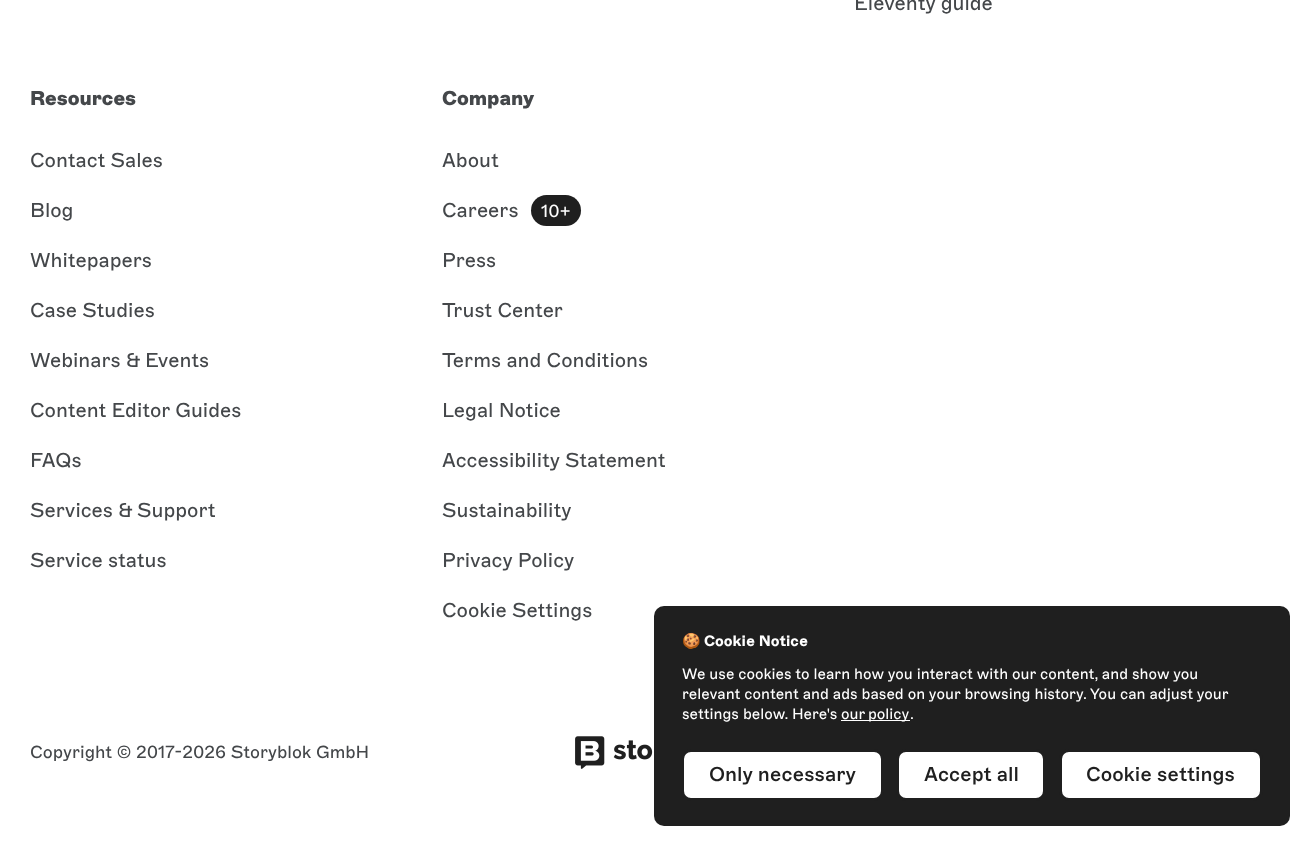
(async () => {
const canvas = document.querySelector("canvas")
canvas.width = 1308
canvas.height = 844
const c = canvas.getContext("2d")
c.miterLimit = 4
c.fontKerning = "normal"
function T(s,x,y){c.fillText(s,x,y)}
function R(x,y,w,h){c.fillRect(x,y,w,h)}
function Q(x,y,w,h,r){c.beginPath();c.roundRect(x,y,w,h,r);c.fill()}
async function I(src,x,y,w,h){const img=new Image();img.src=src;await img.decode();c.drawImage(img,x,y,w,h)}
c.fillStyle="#fff"
R(0,0,1308,844)
c.font="20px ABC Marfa"
c.fillStyle="#44474a"
T("Eleventy guide",854,10)
c.font="900 20px ABC Marfa"
T("Resources",30,105)
c.font="20px ABC Marfa"
T("Contact Sales",30,167)
T("Blog",30,217)
T("Whitepapers",30,267)
T("Case Studies",30,317)
T("Webinars & Events",30,367)
T("Content Editor Guides",30,417)
T("FAQs",30,467)
T("Services & Support",30,517)
T("Service status",30,567)
c.font="900 20px ABC Marfa"
T("Company",442,105)
c.font="20px ABC Marfa"
T("About",442,167)
T("Careers",442,217)
c.fillStyle="#1f1f1f"
Q(531,195,50,31,15.5)
c.font="17.5px ABC Marfa"
c.fillStyle="#fff"
T("10+",541,217)
c.font="20px ABC Marfa"
c.fillStyle="#44474a"
T("Press",442,267)
T("Trust Center",442,317)
T("Terms and Conditions",442,367)
T("Legal Notice",442,417)
T("Accessibility Statement",442,467)
T("Sustainability",442,517)
T("Privacy Policy",442,567)
T("Cookie Settings",442,617)
c.font="17.5px ABC Marfa"
T("Copyright © 2017-2026 Storyblok GmbH",30,758)
await I("1.png",575,736,78,33)
c.fillStyle="#1f1f1f"
Q(654,606,636,220,10)
c.font="bold 15px Noto Color Emoji"
c.fillStyle="#fff"
T("🍪",682,646)
c.font="bold 15px ABC Marfa"
T("Cookie Notice",704,646)
c.font="15px ABC Marfa"
T("We use cookies to learn how you interact with our content, and show you",682,679)
T("relevant content and ads based on your browsing history. You can adjust your",682,699)
T("settings below. Here's",682,719)
R(841,720,69,1)
c.wordSpacing="-1px"
T("our policy",841,719)
c.wordSpacing="0px"
T(".",910,719)
c.beginPath()
c.roundRect(682.5,750.5,200,49,8.5)
c.fill()
c.strokeStyle="#1f1f1f"
c.lineWidth=3
c.stroke()
c.font="500 20px ABC Marfa"
c.fillStyle="#1f1f1f"
T("Only necessary",709,781)
c.fillStyle="#fff"
c.beginPath()
c.roundRect(897.5,750.5,147,49,8.5)
c.fill()
c.stroke()
c.fillStyle="#1f1f1f"
T("Accept all",924,781)
c.fillStyle="#fff"
c.beginPath()
c.roundRect(1060.5,750.5,201,49,8.5)
c.fill()
c.stroke()
c.fillStyle="#1f1f1f"
T("Cookie settings",1086,781)
})()
